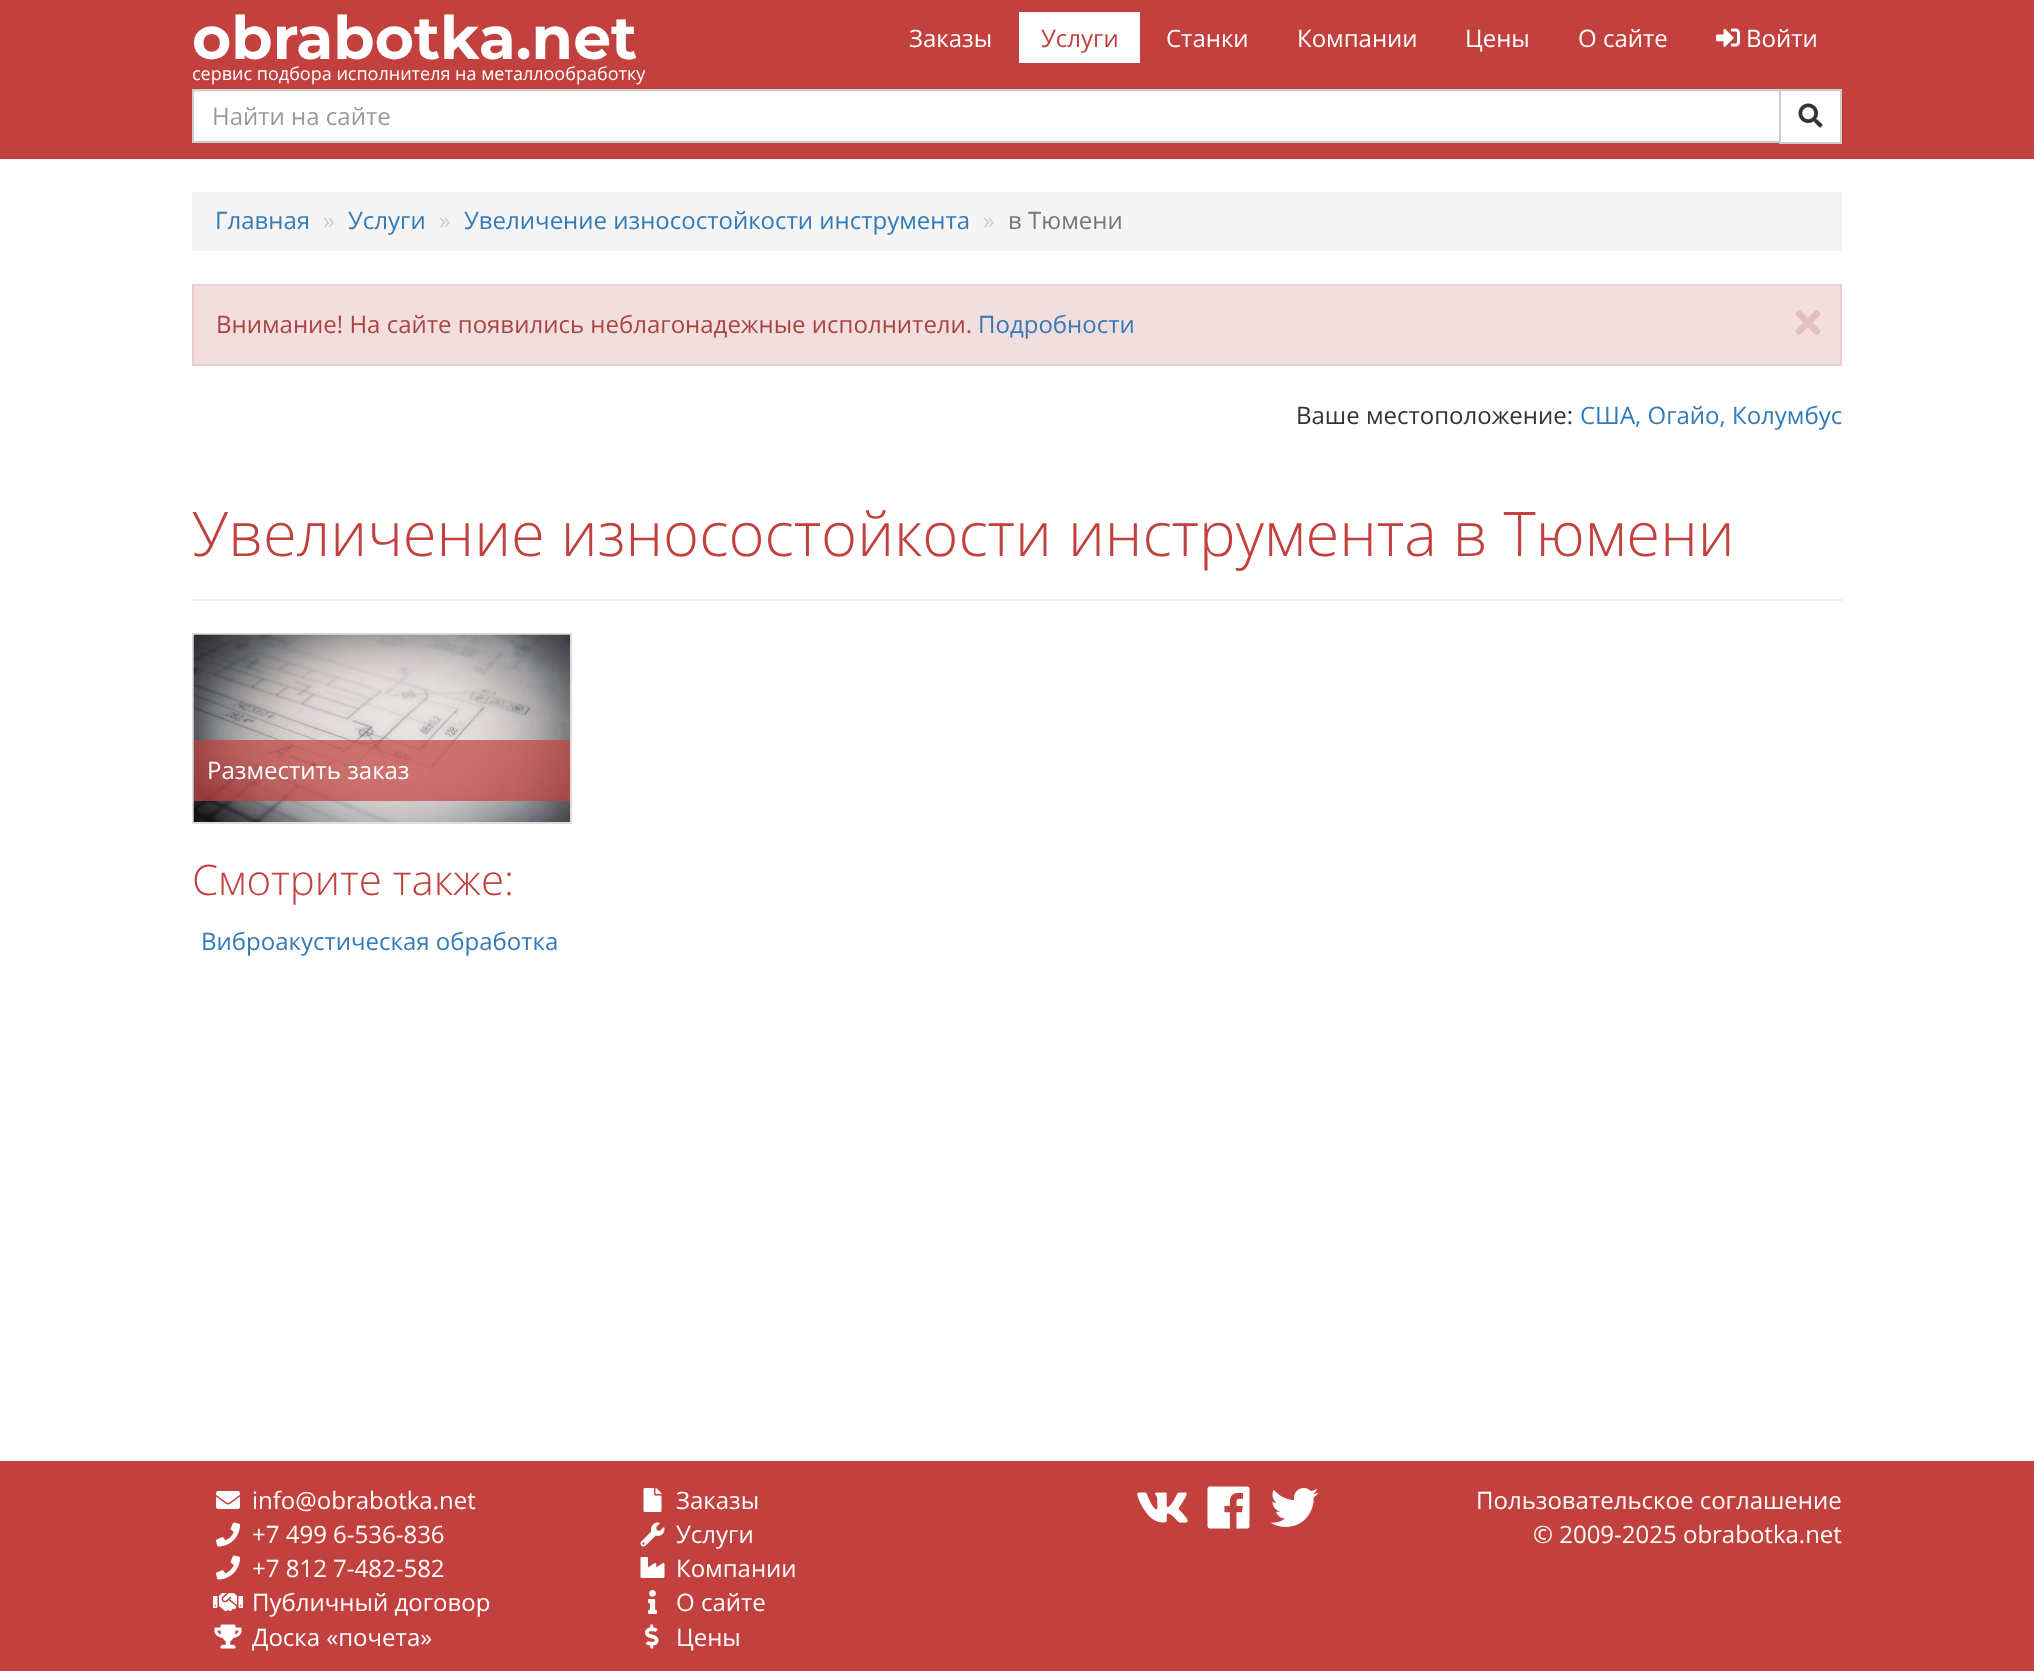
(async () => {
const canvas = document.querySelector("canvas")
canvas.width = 2034
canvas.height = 1671
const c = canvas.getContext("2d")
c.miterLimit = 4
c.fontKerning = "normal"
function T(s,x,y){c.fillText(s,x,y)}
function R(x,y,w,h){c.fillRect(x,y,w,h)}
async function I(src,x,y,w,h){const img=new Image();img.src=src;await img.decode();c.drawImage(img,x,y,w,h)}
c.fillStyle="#fff"
R(0,0,2034,1671)
c.fillStyle="#c2413e"
R(0,0,2034,159)
c.font="100 60px Montserrat"
c.fillStyle="#fff"
T("obrabotka.net",192,59)
c.font="18px Open Sans"
T("сервис подбора исполнителя на металлообработку",192,80)
c.font="24px Open Sans"
T("Заказы",909,47)
R(1019,12,121,51)
c.fillStyle="#c2413e"
T("Услуги",1041,47)
c.fillStyle="#fff"
T("Станки",1166,47)
T("Компании",1297,47)
T("Цены",1465,47)
T("О сайте",1578,47)
await I("1.png",1716,28,24,19)
T("Войти",1746,47)
R(194,92,1585,49)
c.fillStyle="#ececec"
R(194,91,1585,1)
c.strokeStyle="#ccc"
c.lineWidth=2
c.strokeRect(193,90,1587,52)
c.fillStyle="#999"
T("Найти на сайте",212,125)
c.fillStyle="#fff"
c.beginPath()
c.rect(1780,90,61,53)
c.fill()
c.stroke()
await I("2.png",1798,103,25,25)
c.fillStyle="#f5f5f5"
R(192,192,1650,59)
c.fillStyle="#337ab7"
T("Главная",215,229)
c.fillStyle="#ccc"
T("»",323,229)
c.fillStyle="#337ab7"
T("Услуги",348,229)
c.fillStyle="#ccc"
T("»",439,229)
c.fillStyle="#337ab7"
T("Увеличение износостойкости инструмента",464,229)
c.fillStyle="#ccc"
T("»",983,229)
c.fillStyle="#777"
T("в Тюмени",1008,229)
c.fillStyle="#f2dede"
c.beginPath()
c.rect(193,285,1648,80)
c.fill()
c.strokeStyle="#ebccd1"
c.stroke()
c.fillStyle="#a94442"
T("Внимание! На сайте появились неблагонадежные исполнители.",216,333)
c.fillStyle="#337ab7"
T("Подробности",978,333)
await I("3.png",1795,310,26,25)
c.fillStyle="#333"
T("Ваше местоположение:",1296,424)
c.fillStyle="#337ab7"
T("США, Огайо, Колумбус",1580,424)
c.fillStyle="#eee"
R(192,599,1650,2)
c.font="300 61.5px Open Sans"
c.fillStyle="#c2413e"
T("Увеличение износостойкости инструмента в Тюмени",192,556)
c.strokeStyle="#ddd"
c.strokeRect(193,634,378,189)
await I("4.png",193,634,377,188)
c.fillStyle="#c2413eb3"
R(194,740,376,61)
c.font="24px Open Sans"
c.fillStyle="#fff"
T("Разместить заказ",207,779)
c.font="300 42px Open Sans"
c.fillStyle="#c2413e"
T("Смотрите также:",192,895)
c.font="24px Open Sans"
c.fillStyle="#337ab7"
T("Виброакустическая обработка",201,950)
c.fillStyle="#c2413e"
R(0,1461,2034,210)
await I("5.png",216,1491,24,18)
c.fillStyle="#fff"
T("info@obrabotka.net",252,1509)
await I("6.png",216,1522,24,25)
T("+7 499 6-536-836",252,1543)
await I("6.png",216,1555,24,25)
T("+7 812 7-482-582",252,1577)
await I("7.png",213,1593,30,18)
T("Публичный договор",252,1611)
await I("8.png",214,1624,28,25)
T("Доска «почета»",252,1646)
await I("9.png",643,1488,19,24)
T("Заказы",676,1509)
await I("10.png",640,1522,25,25)
T("Услуги",676,1543)
await I("11.png",640,1557,25,21)
T("Компании",676,1577)
await I("12.png",648,1590,9,24)
T("О сайте",676,1611)
await I("13.png",645,1624,14,25)
T("Цены",676,1646)
await I("14.png",1137,1492,51,31)
await I("15.png",1207,1486,43,43)
await I("16.png",1270,1488,49,39)
T("Пользовательское соглашение",1476,1509)
T("© 2009-2025 obrabotka.net",1533,1543)
})()
